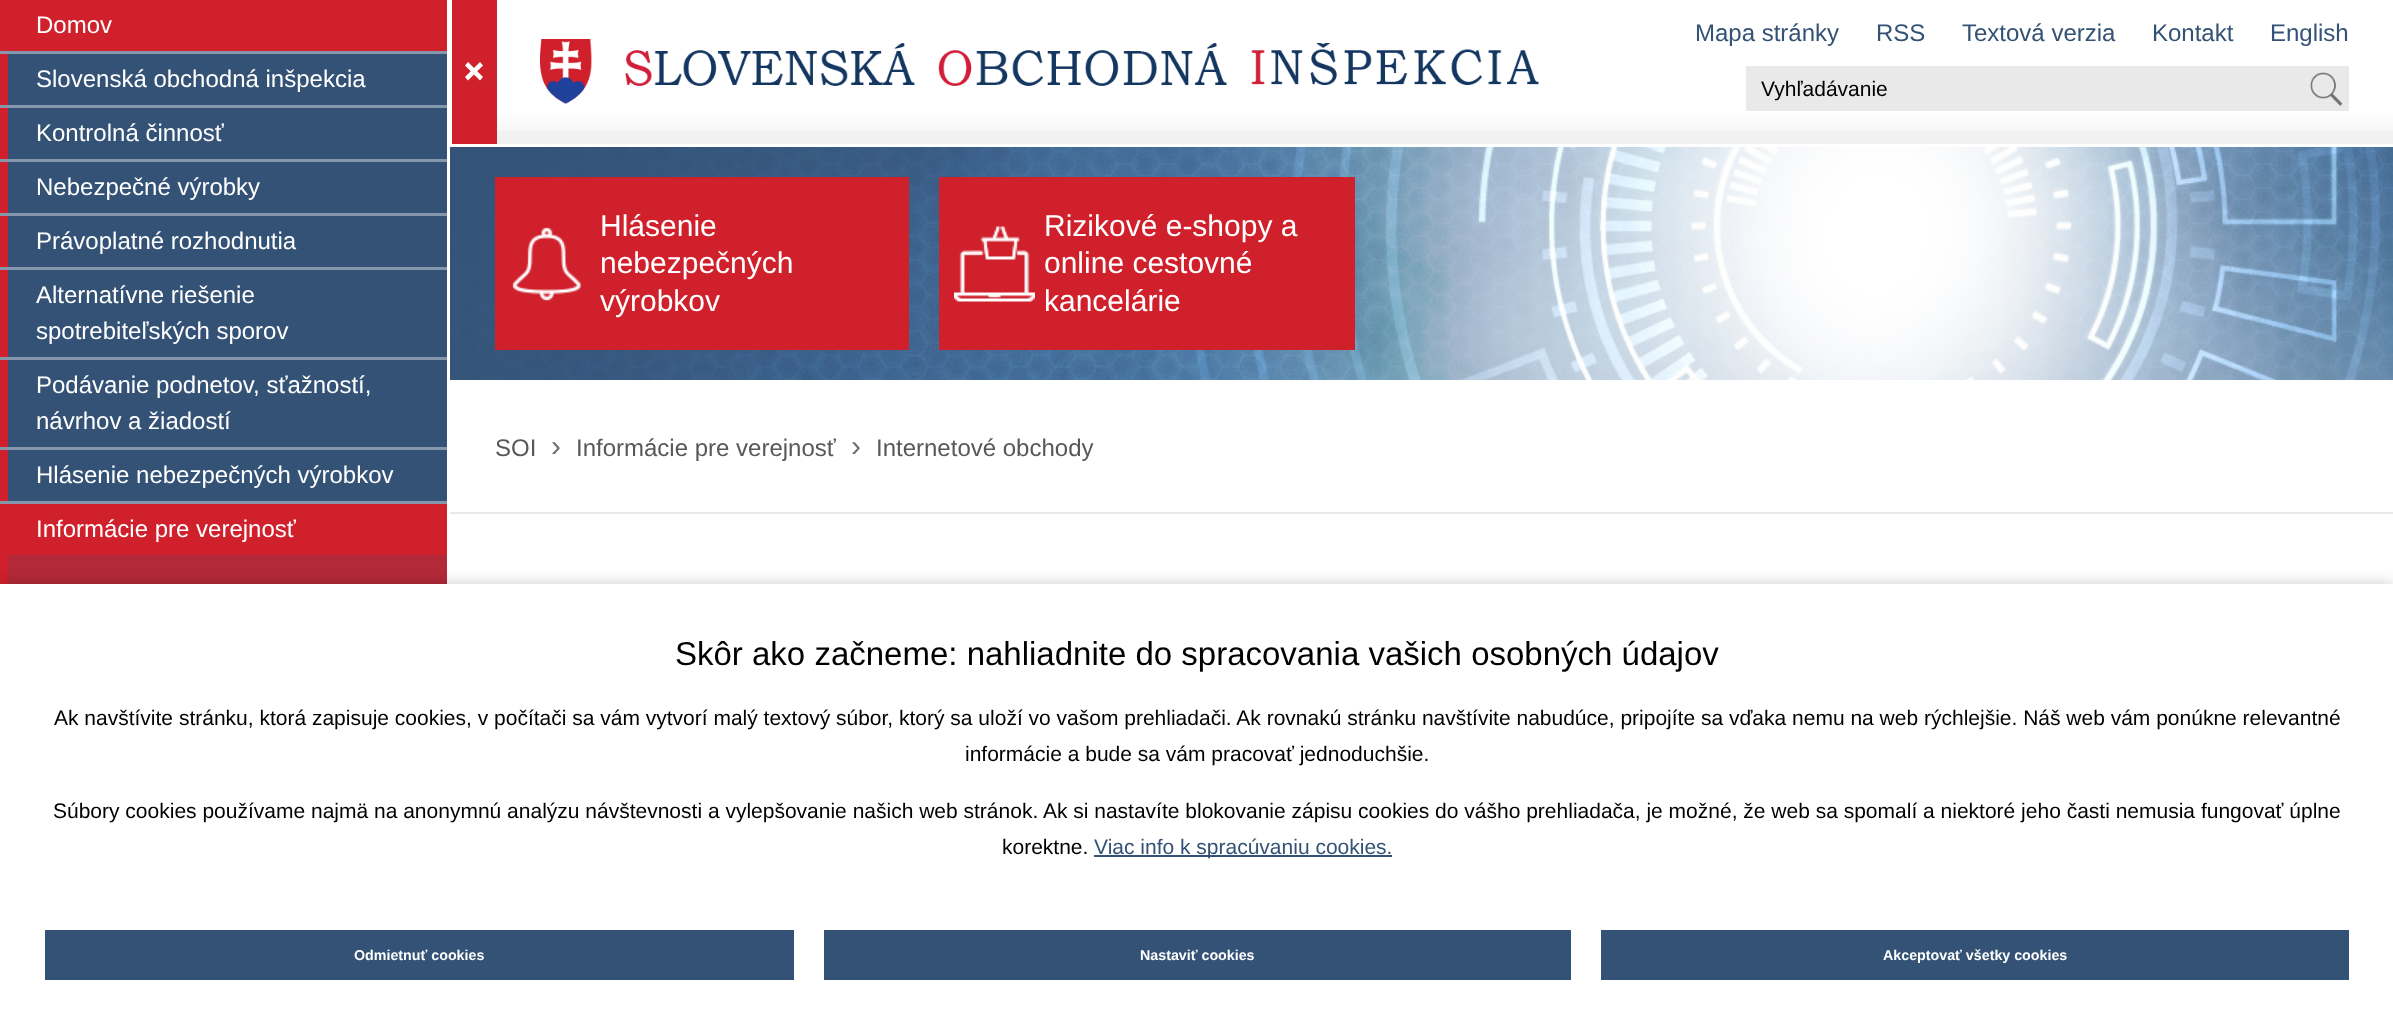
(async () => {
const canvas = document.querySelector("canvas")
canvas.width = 2393
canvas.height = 1024
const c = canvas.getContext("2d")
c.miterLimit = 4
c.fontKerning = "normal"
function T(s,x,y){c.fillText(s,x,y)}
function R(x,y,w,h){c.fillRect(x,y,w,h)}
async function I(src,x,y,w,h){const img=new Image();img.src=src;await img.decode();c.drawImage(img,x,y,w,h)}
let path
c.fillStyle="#fff"
R(0,0,2393,1024)
c.fillStyle="#335276"
R(8,54,439,447)
c.fillStyle="#8597ad"
R(0,51,447,3)
c.fillStyle="#cf202b"
R(0,0,447,51)
c.font="24px Liberation Sans"
c.fillStyle="#fff"
T("Domov",36,33)
c.fillStyle="#8597ad"
R(0,105,447,3)
c.fillStyle="#cf202b"
R(0,54,8,51)
c.fillStyle="#fff"
T("Slovenská obchodná inšpekcia",36,87)
c.fillStyle="#8597ad"
R(0,159,447,3)
c.fillStyle="#cf202b"
R(0,108,8,51)
c.fillStyle="#fff"
T("Kontrolná činnosť",36,141)
c.fillStyle="#8597ad"
R(0,213,447,3)
c.fillStyle="#cf202b"
R(0,162,8,51)
c.fillStyle="#fff"
T("Nebezpečné výrobky",36,195)
c.fillStyle="#8597ad"
R(0,267,447,3)
c.fillStyle="#cf202b"
R(0,216,8,51)
c.fillStyle="#fff"
T("Právoplatné rozhodnutia",36,249)
c.fillStyle="#8597ad"
R(0,357,447,3)
c.fillStyle="#cf202b"
R(0,270,8,87)
c.fillStyle="#fff"
T("Alternatívne riešenie",36,303)
T("spotrebiteľských sporov",36,339)
c.fillStyle="#8597ad"
R(0,447,447,3)
c.fillStyle="#cf202b"
R(0,360,8,87)
c.fillStyle="#fff"
T("Podávanie podnetov, sťažností,",36,393)
T("návrhov a žiadostí",36,429)
c.fillStyle="#8597ad"
R(0,501,447,3)
c.fillStyle="#cf202b"
R(0,450,8,51)
c.fillStyle="#fff"
T("Hlásenie nebezpečných výrobkov",36,483)
c.fillStyle="#cf202b"
R(0,504,447,51)
c.fillStyle="#fff"
T("Informácie pre verejnosť",36,537)
c.fillStyle="#b32939"
R(8,555,439,29)
c.fillStyle="#cf202b"
R(0,555,8,29)
R(452,0,45,144)
c.fillStyle="#fff"
path = new Path2D("M468 62l15 15l-3 3.5l-15-15z")
c.fill(path)
path = new Path2D("M465 77l15-15l3 3.5l-15 15z")
c.fill(path)
c.fillStyle="#f1f1f1"
R(497,131,1896,13)
await I("1.png",497,0,1896,131)
await I("2.png",540,39,999,65)
c.fillStyle="#335276"
T("Mapa stránky",1695,41)
T("RSS",1876,41)
T("Textová verzia",1962,41)
T("Kontakt",2152,41)
T("English",2270,41)
c.fillStyle="#e9e9e9"
R(1746,66,603,45)
c.font="21px Liberation Sans"
c.fillStyle="#000"
T("Vyhľadávanie",1761,96)
await I("3.png",2310,72,33,34)
await I("4.png",450,147,1943,233)
c.fillStyle="#cf202b"
R(495,177,414,173)
await I("5.png",512,227,69,74)
c.font="30px Liberation Sans"
c.fillStyle="#fff"
T("Hlásenie",600,236)
T("nebezpečných",600,273)
T("výrobkov",600,311)
c.fillStyle="#cf202b"
R(939,177,416,173)
await I("6.png",954,226,81,76)
c.fillStyle="#fff"
T("Rizikové e-shopy a",1044,236)
T("online cestovné",1044,273)
T("kancelárie",1044,311)
c.fillStyle="#e9e9e9"
R(450,512,1943,2)
c.font="24px Liberation Sans"
c.fillStyle="#585858"
T("SOI",495,456)
c.font="30px Liberation Sans"
c.fillStyle="#6f6f6f"
T("›",551,456)
c.font="24px Liberation Sans"
c.fillStyle="#585858"
T("Informácie pre verejnosť",576,456)
c.font="30px Liberation Sans"
c.fillStyle="#6f6f6f"
T("›",851,456)
c.font="24px Liberation Sans"
c.fillStyle="#585858"
T("Internetové obchody",876,456)
c.fillStyle="#00000033"
c.filter="blur(7.5px)"
c.beginPath()
c.rect(0,584,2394,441)
c.fill()
c.filter="none"
c.fillStyle="#fff"
R(0,584,2393,440)
c.font="33px Liberation Sans"
c.fillStyle="#000"
T("Skôr ako začneme: nahliadnite do spracovania vašich osobných údajov",675,665)
c.font="21px Liberation Sans"
T("Ak navštívite stránku, ktorá zapisuje cookies, v počítači sa vám vytvorí malý textový súbor, ktorý sa uloží vo vašom prehliadači. Ak rovnakú stránku navštívite nabudúce, pripojíte sa vďaka nemu na web rýchlejšie. Náš web vám ponúkne relevantné",54,725)
T("informácie a bude sa vám pracovať jednoduchšie.",965,761)
T("Súbory cookies používame najmä na anonymnú analýzu návštevnosti a vylepšovanie našich web stránok. Ak si nastavíte blokovanie zápisu cookies do vášho prehliadača, je možné, že web sa spomalí a niektoré jeho časti nemusia fungovať úplne",53,818)
T("korektne.",1002,854)
c.fillStyle="#335276"
R(1094,855,298,2)
T("Viac info k spracúvaniu cookies.",1094,854)
R(45,930,749,50)
c.font="bold 14.25px Liberation Sans"
c.fillStyle="#fff"
T("Odmietnuť cookies",354,960)
c.fillStyle="#335276"
R(824,930,747,50)
c.fillStyle="#fff"
T("Nastaviť cookies",1140,960)
c.fillStyle="#335276"
R(1601,930,748,50)
c.fillStyle="#fff"
T("Akceptovať všetky cookies",1883,960)
})()
